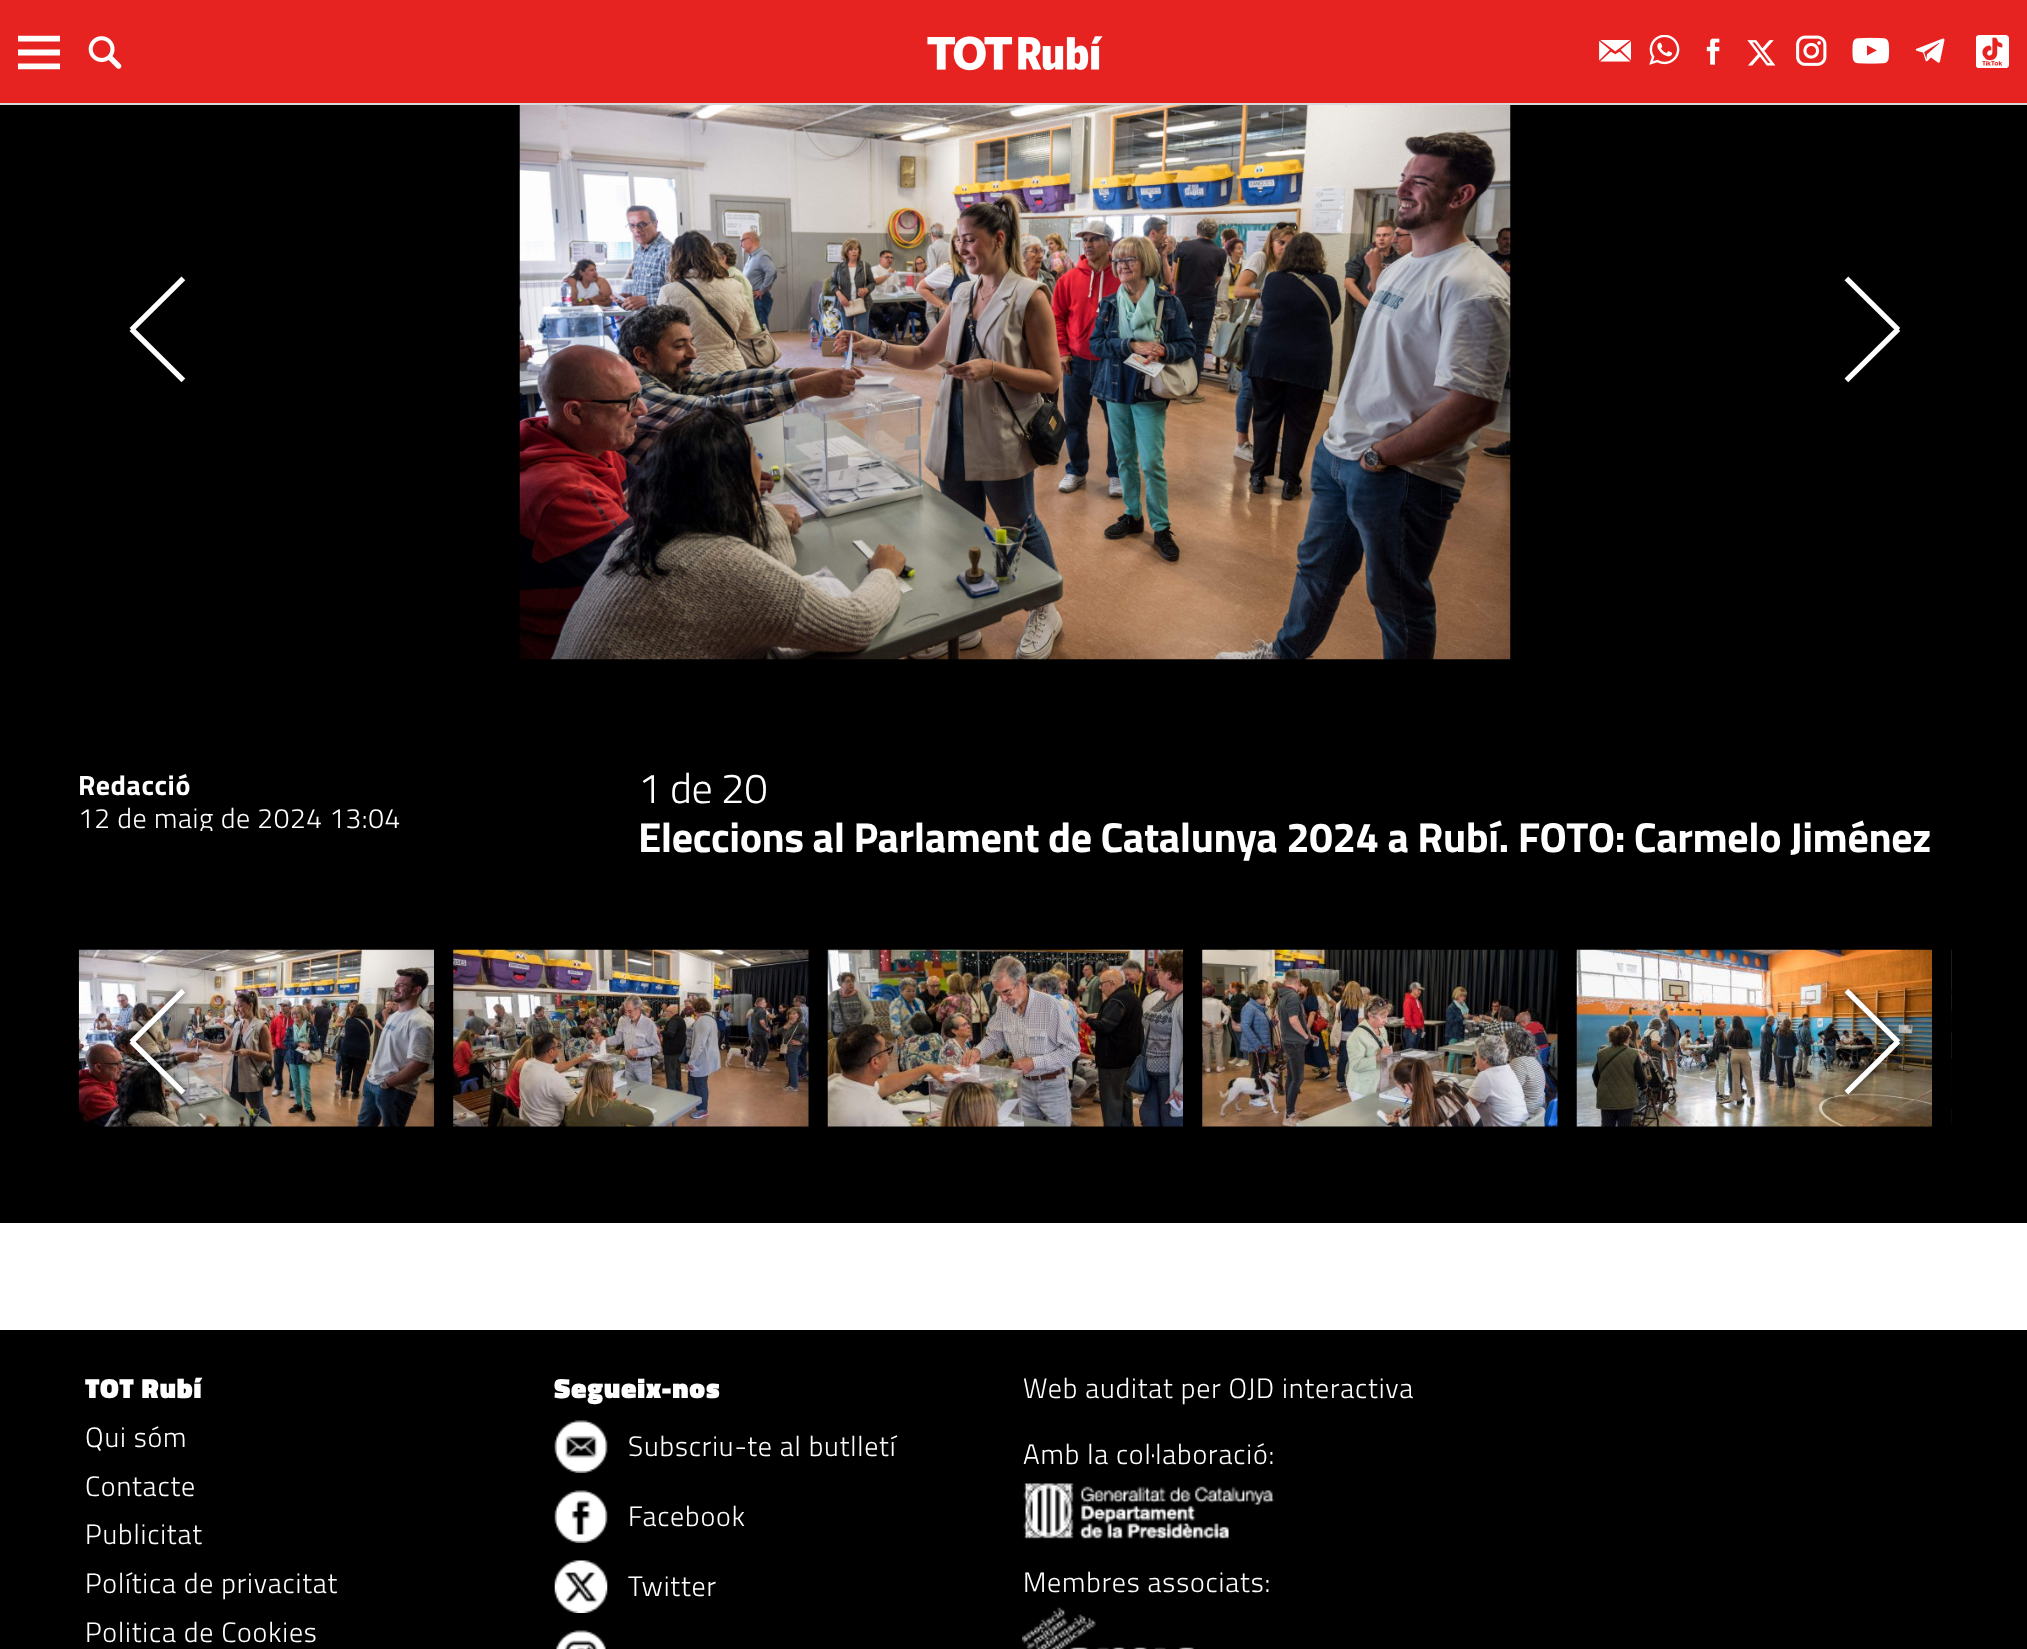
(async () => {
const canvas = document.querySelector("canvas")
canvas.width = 2027
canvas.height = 1649
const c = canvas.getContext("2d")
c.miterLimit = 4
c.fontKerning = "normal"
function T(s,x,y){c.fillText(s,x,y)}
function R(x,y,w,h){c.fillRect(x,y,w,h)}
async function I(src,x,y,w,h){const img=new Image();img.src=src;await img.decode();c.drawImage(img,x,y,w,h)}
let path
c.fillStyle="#fff"
R(0,0,2027,1649)
c.fillStyle="#e62321"
R(0,0,2027,103)
c.fillStyle="#d9d9db"
R(0,103,2027,2)
c.save()
c.beginPath()
c.rect(18,35,43,35)
c.clip()
path = new Path2D("M17.5 35.5v34h43v-34z")
c.clip(path)
path = new Path2D("M17.5 38.5h42.5")
c.strokeStyle="#fff"
c.lineWidth=6
c.stroke(path)
c.restore()
c.save()
c.beginPath()
c.rect(18,35,43,35)
c.clip()
path = new Path2D("M17.5 52.5h42.5")
c.strokeStyle="#fff"
c.lineWidth=6
c.stroke(path)
c.restore()
c.save()
c.beginPath()
c.rect(18,35,43,35)
c.clip()
path = new Path2D("M17.5 35.5v34h43v-34z")
c.clip(path)
path = new Path2D("M17.5 66.5h42.5")
c.strokeStyle="#fff"
c.lineWidth=6
c.stroke(path)
c.restore()
await I("1.png",88,36,34,33)
await I("2.png",1599,40,32,22)
await I("3.png",1649,35,31,30)
await I("4.png",1706,38,14,27)
await I("5.png",1747,40,29,26)
await I("6.png",1796,35,31,31)
await I("7.png",1852,37,38,27)
await I("8.png",1915,38,30,25)
await I("9.png",1976,35,33,33)
await I("10.png",927,36,176,35)
c.fillStyle="#000"
R(0,105,2027,1118)
await I("11.png",129,276,57,107)
await I("12.png",519,105,992,555)
await I("13.png",1844,276,57,107)
c.letterSpacing="0.6px"
c.font="bold 28px Titillium Web"
c.fillStyle="#fff"
T("Redacció",78,795)
c.save()
c.beginPath()
c.rect(79,765,490,66)
c.clip()
c.font="300 28px Titillium Web"
T("12 de maig de 2024 13:04",78,828)
c.restore()
c.letterSpacing="-0.42px"
c.font="300 42px Titillium Web"
T("1 de 20",638,803)
c.font="bold 42px Titillium Web"
T("Eleccions al Parlament de Catalunya 2024 a Rubí. FOTO: Carmelo Jiménez",638,852)
await I("14.png",78,949,356,178)
await I("15.png",453,949,356,178)
await I("16.png",827,949,356,178)
await I("17.png",1202,949,356,178)
await I("18.png",1576,949,356,178)
await I("19.png",1951,949,1,177)
await I("20.png",127,983,64,117)
await I("21.png",1839,985,66,113)
c.fillStyle="#000"
R(0,1330,2027,319)
c.letterSpacing="0.85px"
c.font="900 28px Titillium Web"
c.fillStyle="#fff"
T("TOT Rubí",85,1398)
c.font="300 28px Titillium Web"
T("Qui sóm",85,1447)
T("Contacte",85,1496)
T("Publicitat",85,1544)
T("Política de privacitat",85,1593)
T("Politica de Cookies",85,1642)
c.font="900 28px Titillium Web"
T("Segueix-nos",554,1398)
await I("22.png",554,1420,54,53)
c.font="300 28px Titillium Web"
T("Subscriu-te al butlletí",628,1456)
await I("23.png",554,1490,54,53)
T("Facebook",628,1526)
await I("24.png",554,1560,54,53)
T("Twitter",628,1596)
await I("25.png",556,1630,50,19)
T("Web auditat per OJD interactiva",1023,1398)
T("Amb la col·laboració:",1023,1464)
await I("26.png",1023,1483,252,56)
T("Membres associats:",1023,1592)
await I("27.png",1022,1607,172,42)
})()
